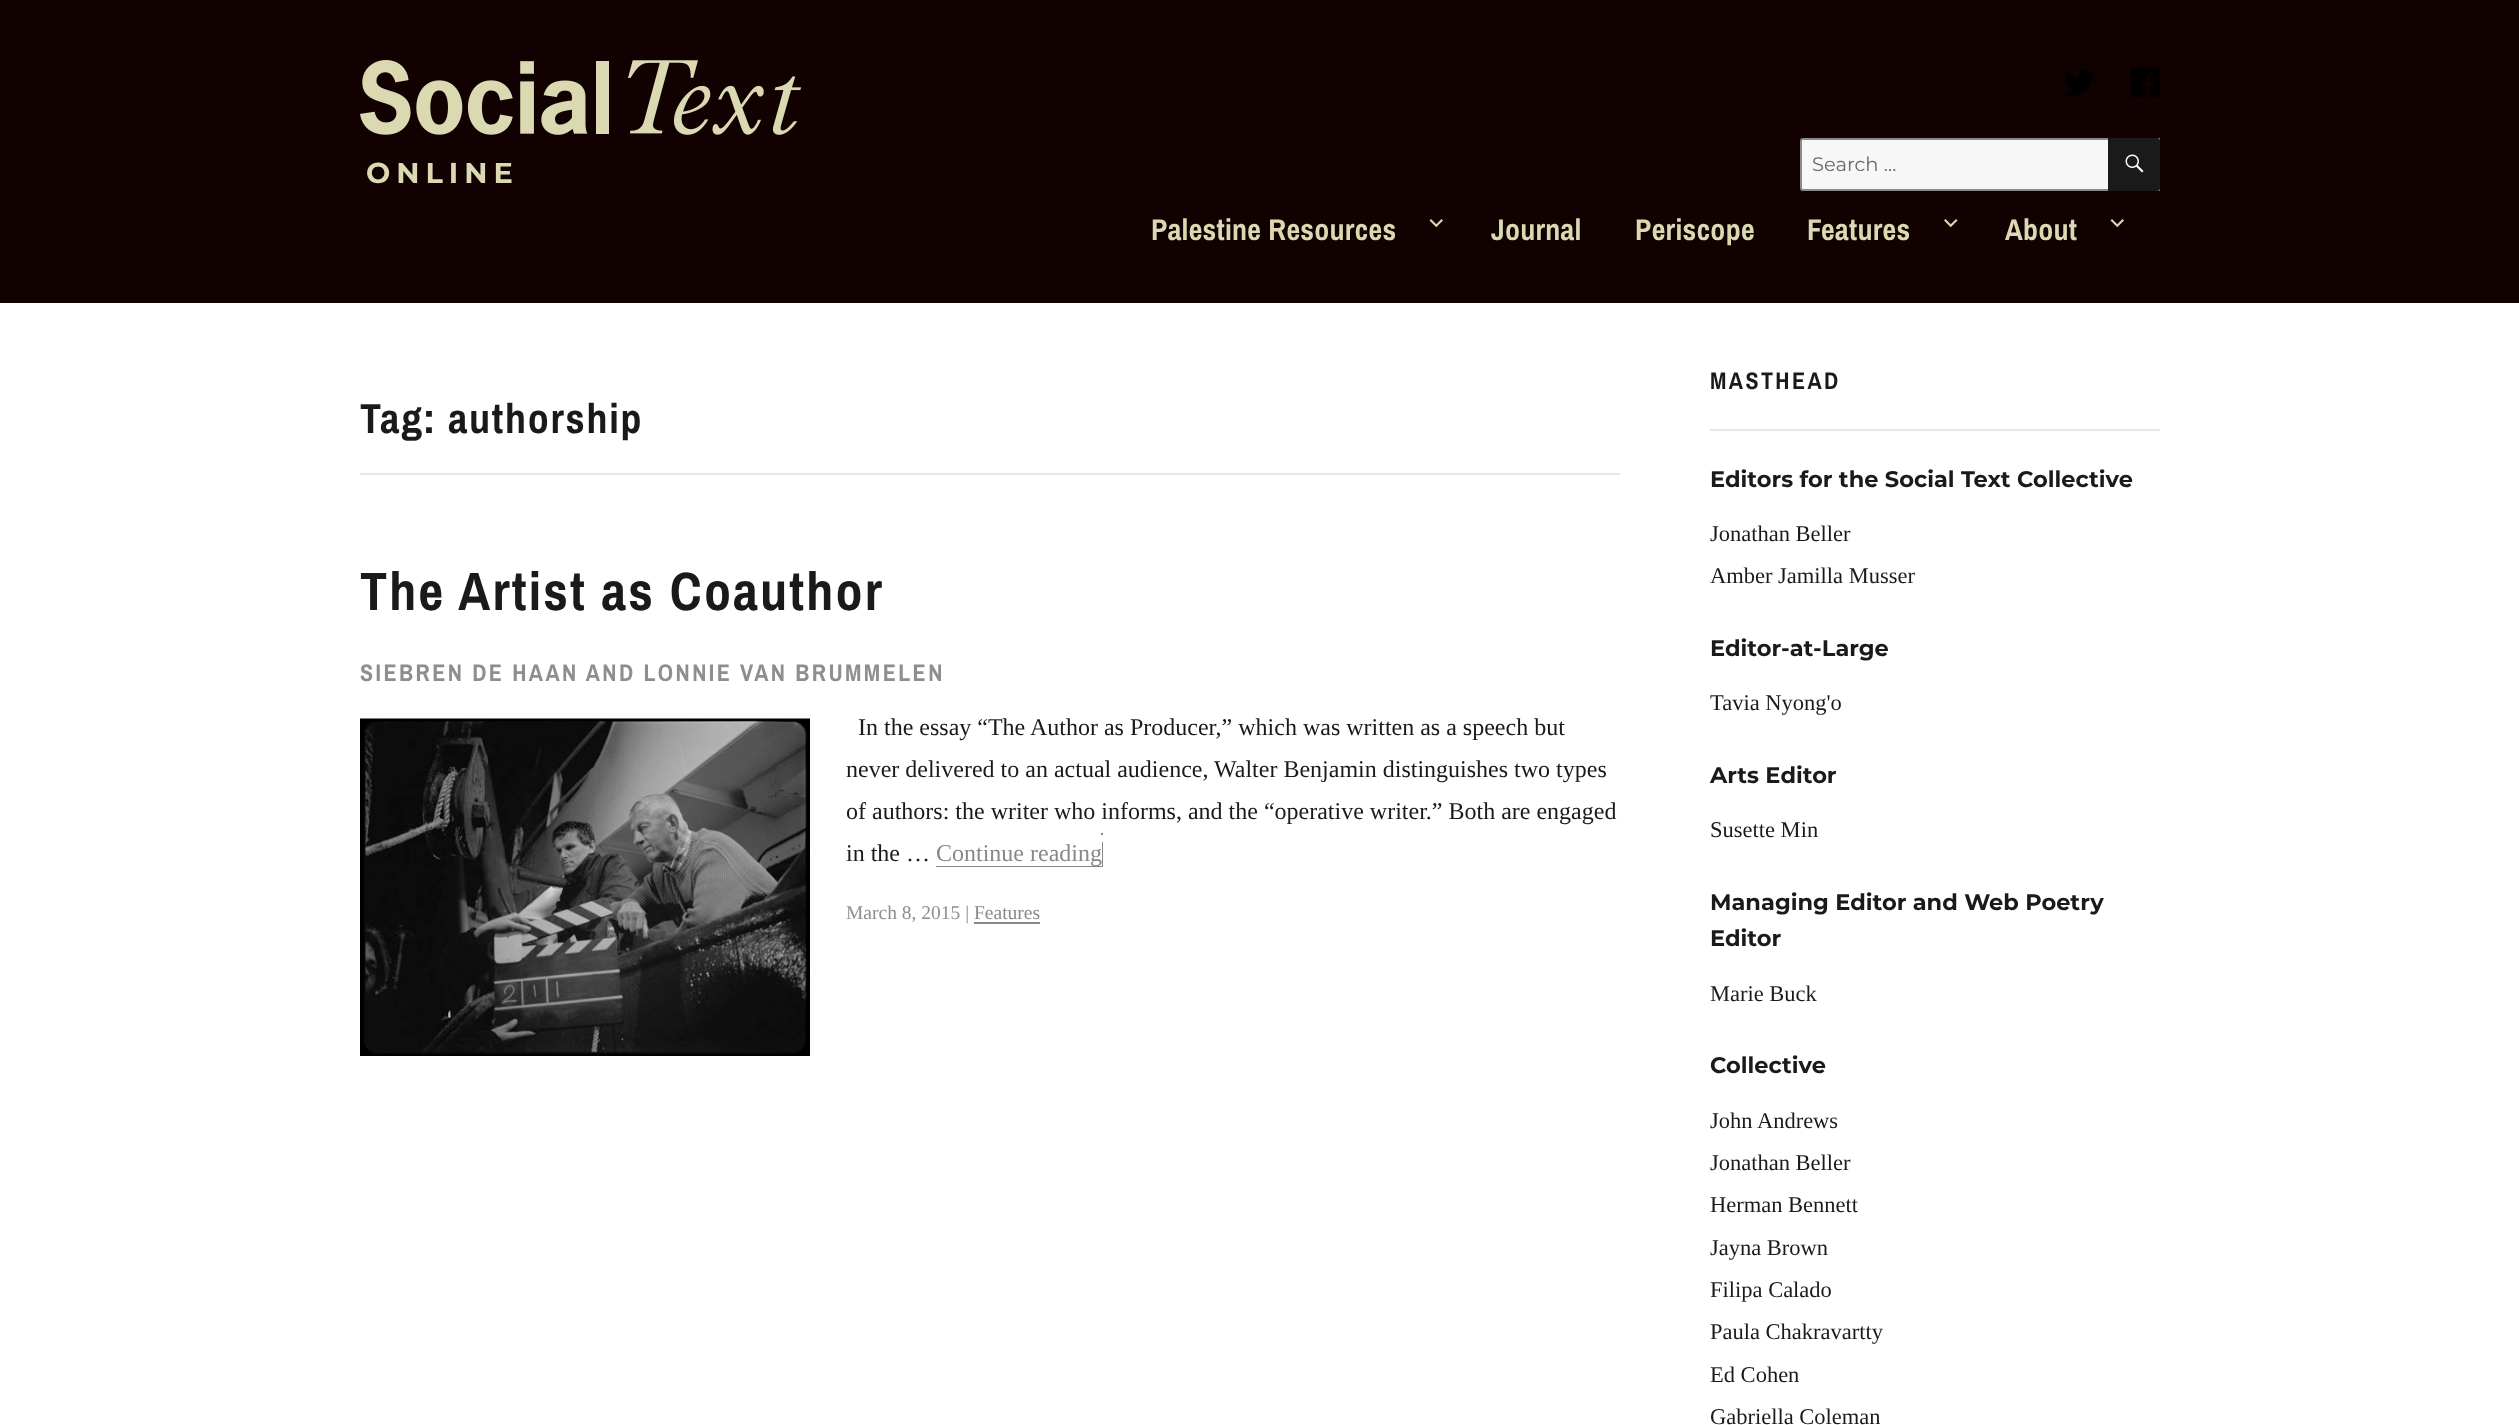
(async () => {
const canvas = document.querySelector("canvas")
canvas.width = 2519
canvas.height = 1425
const c = canvas.getContext("2d")
c.miterLimit = 4
c.fontKerning = "normal"
function T(s,x,y){c.fillText(s,x,y)}
function R(x,y,w,h){c.fillRect(x,y,w,h)}
async function I(src,x,y,w,h){const img=new Image();img.src=src;await img.decode();c.drawImage(img,x,y,w,h)}
let path
c.fillStyle="#fff"
R(0,0,2519,1425)
c.fillStyle="#110101"
R(0,0,2519,303)
await I("1.png",360,60,441,75)
c.letterSpacing="6px"
c.font="100 28.75px Montserrat"
c.fillStyle="#dad9b1"
T("ONLINE",366,183)
await I("2.png",2065,69,29,27)
await I("3.png",2130,67,30,31)
c.fillStyle="#f7f7f7"
c.beginPath()
c.roundRect(1801,139,358,51,[2,0,0,2])
c.fill()
c.strokeStyle="#8a8a8a"
c.lineWidth=2
c.stroke()
c.letterSpacing="0px"
c.font="100 19.5px 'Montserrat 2'"
c.fillStyle="#686868"
T("Search …",1812,171)
c.fillStyle="#1a1a1a"
c.beginPath()
c.roundRect(2108,138,52,53,[0,3,3,0])
c.fill()
await I("4.png",2125,154,19,19)
c.letterSpacing="0.25px"
c.font="bold 30px Archivo Narrow"
c.fillStyle="#dad9b1"
T("Palestine Resources",1151,240)
await I("5.png",1429,219,14,9)
T("Journal",1491,240)
T("Periscope",1635,240)
T("Features",1807,240)
await I("6.png",1944,219,14,9)
T("About",2005,240)
await I("5.png",2110,219,14,9)
c.fillStyle="#e6e6e8"
R(360,473,1260,2)
c.letterSpacing="1.7px"
c.font="bold 42px Archivo Narrow"
c.fillStyle="#1a1a1a"
T("Tag: authorship",360,433)
c.letterSpacing="2.2px"
c.font="bold 54px Archivo Narrow"
T("The Artist as Coauthor",360,610)
c.letterSpacing="2.4px"
c.font="bold 24px Archivo Narrow"
c.fillStyle="#8d8f8e"
T("SIEBREN DE HAAN AND LONNIE VAN BRUMMELEN",360,681)
await I("7.png",360,718,450,338)
c.letterSpacing="0px"
c.font="24px Liberation Serif"
c.fillStyle="#1a1a1a"
T("In the essay “The Author as Producer,” which was written as a speech but",858,735)
T("never delivered to an actual audience, Walter Benjamin distinguishes two types",846,777)
T("of authors: the writer who informs, and the “operative writer.” Both are engaged",846,819)
T("in the …",846,861)
c.fillStyle="#888"
path = new Path2D("M936 866v1h167v-25h-1v24z")
c.fill(path)
T("Continue reading",936,861)
R(1101,833,2,2)
c.font="19.5px Liberation Serif"
c.fillStyle="#8d8f8e"
T("March 8, 2015 |",846,919)
c.fillStyle="#888"
T("Features",974,919)
path = new Path2D("M974 922v2h66v-22v20z")
c.fill(path)
c.fillStyle="#e6e6e8"
R(1710,429,450,2)
c.letterSpacing="2.4px"
c.font="bold 24px Archivo Narrow"
c.fillStyle="#1a1a1a"
T("MASTHEAD",1710,389)
c.letterSpacing="0px"
c.font="100 22.5px Montserrat"
T("Editors for the Social Text Collective",1710,487)
c.font="22.5px Liberation Serif"
T("Jonathan Beller",1710,541)
T("Amber Jamilla Musser",1710,583)
c.font="100 22.5px Montserrat"
T("Editor-at-Large",1710,656)
c.font="22.5px Liberation Serif"
T("Tavia Nyong'o",1710,710)
c.font="100 22.5px Montserrat"
T("Arts Editor",1710,783)
c.font="22.5px Liberation Serif"
T("Susette Min",1710,837)
c.font="100 22.5px Montserrat"
T("Managing Editor and Web Poetry",1710,910)
T("Editor",1710,946)
c.font="22.5px Liberation Serif"
T("Marie Buck",1710,1001)
c.font="100 22.5px Montserrat"
T("Collective",1710,1073)
c.font="22.5px Liberation Serif"
T("John Andrews",1710,1128)
T("Jonathan Beller",1710,1170)
T("Herman Bennett",1710,1212)
T("Jayna Brown",1710,1255)
T("Filipa Calado",1710,1297)
T("Paula Chakravartty",1710,1339)
T("Ed Cohen",1710,1382)
T("Gabriella Coleman",1710,1424)
})()
